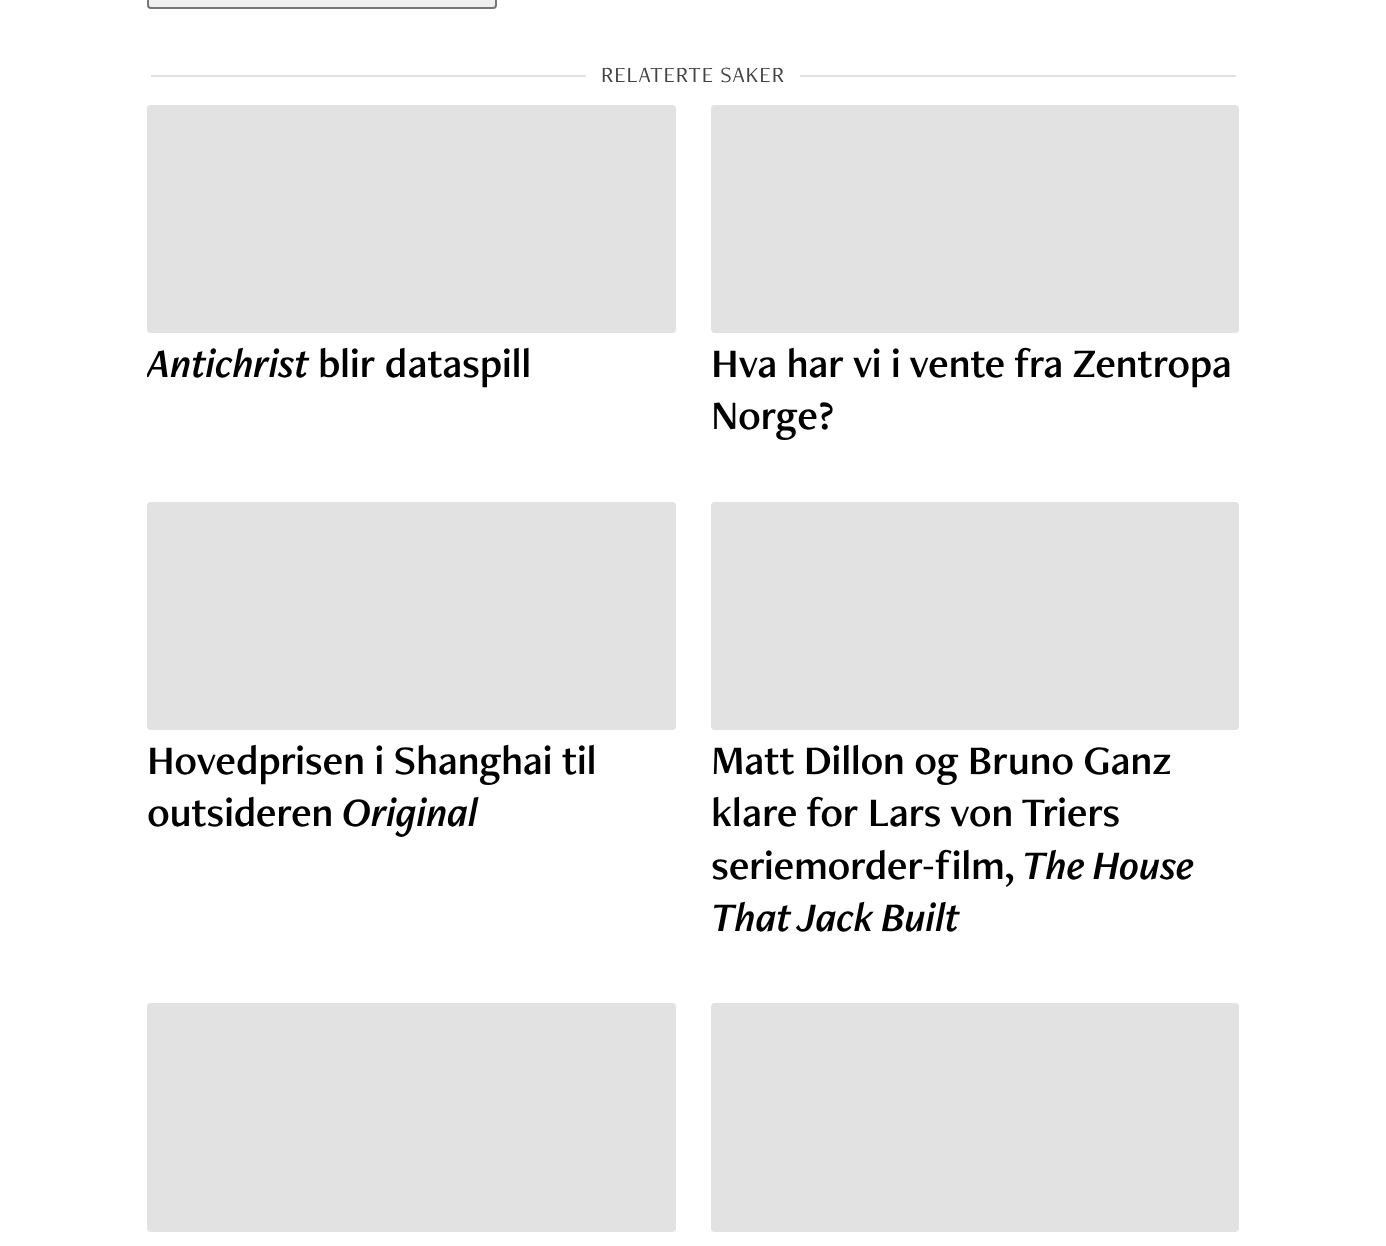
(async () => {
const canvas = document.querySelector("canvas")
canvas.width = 1386
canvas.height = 1246
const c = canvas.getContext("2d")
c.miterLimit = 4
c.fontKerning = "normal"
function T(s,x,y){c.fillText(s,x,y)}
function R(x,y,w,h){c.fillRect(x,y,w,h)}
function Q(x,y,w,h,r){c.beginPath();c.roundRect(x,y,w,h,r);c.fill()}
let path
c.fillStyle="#fff"
R(0,0,1386,1246)
c.fillStyle="#efefef"
c.beginPath()
c.roundRect(148,-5,348,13,3)
c.fill()
c.strokeStyle="#767676"
c.lineWidth=2
c.stroke()
c.fillStyle="#e2e2e2"
R(151,75,1085,2)
c.fillStyle="#fff"
R(586,75,214,2)
c.letterSpacing="0.9px"
c.font="22.5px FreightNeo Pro"
c.fillStyle="#444"
T("RELATERTE SAKER",601,82)
c.fillStyle="#e2e2e2"
Q(147,105,529,228,4)
c.save()
path = new Path2D("M154 77h1078c4 0 7 2.5 7 5v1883c0 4-3 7-7 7h-1078c-4 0-7-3-7-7v-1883c0-2.5 3-5 7-5z")
c.clip(path)
c.letterSpacing="-0.4px"
c.font="italic 600 42px FreightNeo Pro"
c.fillStyle="#000"
T("Antichrist",147,377)
c.restore()
c.letterSpacing="-0.4px"
c.font="42px 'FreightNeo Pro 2'"
c.fillStyle="#000"
T("blir dataspill",318,377)
c.fillStyle="#e2e2e2"
Q(711,105,528,228,4)
c.fillStyle="#000"
T("Hva har vi i vente fra Zentropa",711,377)
T("Norge?",711,429)
c.fillStyle="#e2e2e2"
Q(147,502,529,228,4)
c.fillStyle="#000"
T("Hovedprisen i Shanghai til",147,774)
T("outsideren",147,826)
c.font="italic 600 42px FreightNeo Pro"
T("Original",342,826)
c.fillStyle="#e2e2e2"
Q(711,502,528,228,4)
c.font="42px 'FreightNeo Pro 2'"
c.fillStyle="#000"
T("Matt Dillon og Bruno Ganz",711,774)
T("klare for Lars von Triers",711,826)
T("seriemorder-film,",711,879)
c.font="italic 600 42px FreightNeo Pro"
T("The House",1022,879)
T("That Jack Built",711,931)
c.fillStyle="#e2e2e2"
Q(147,1003,529,229,4)
Q(711,1003,528,229,4)
})()
